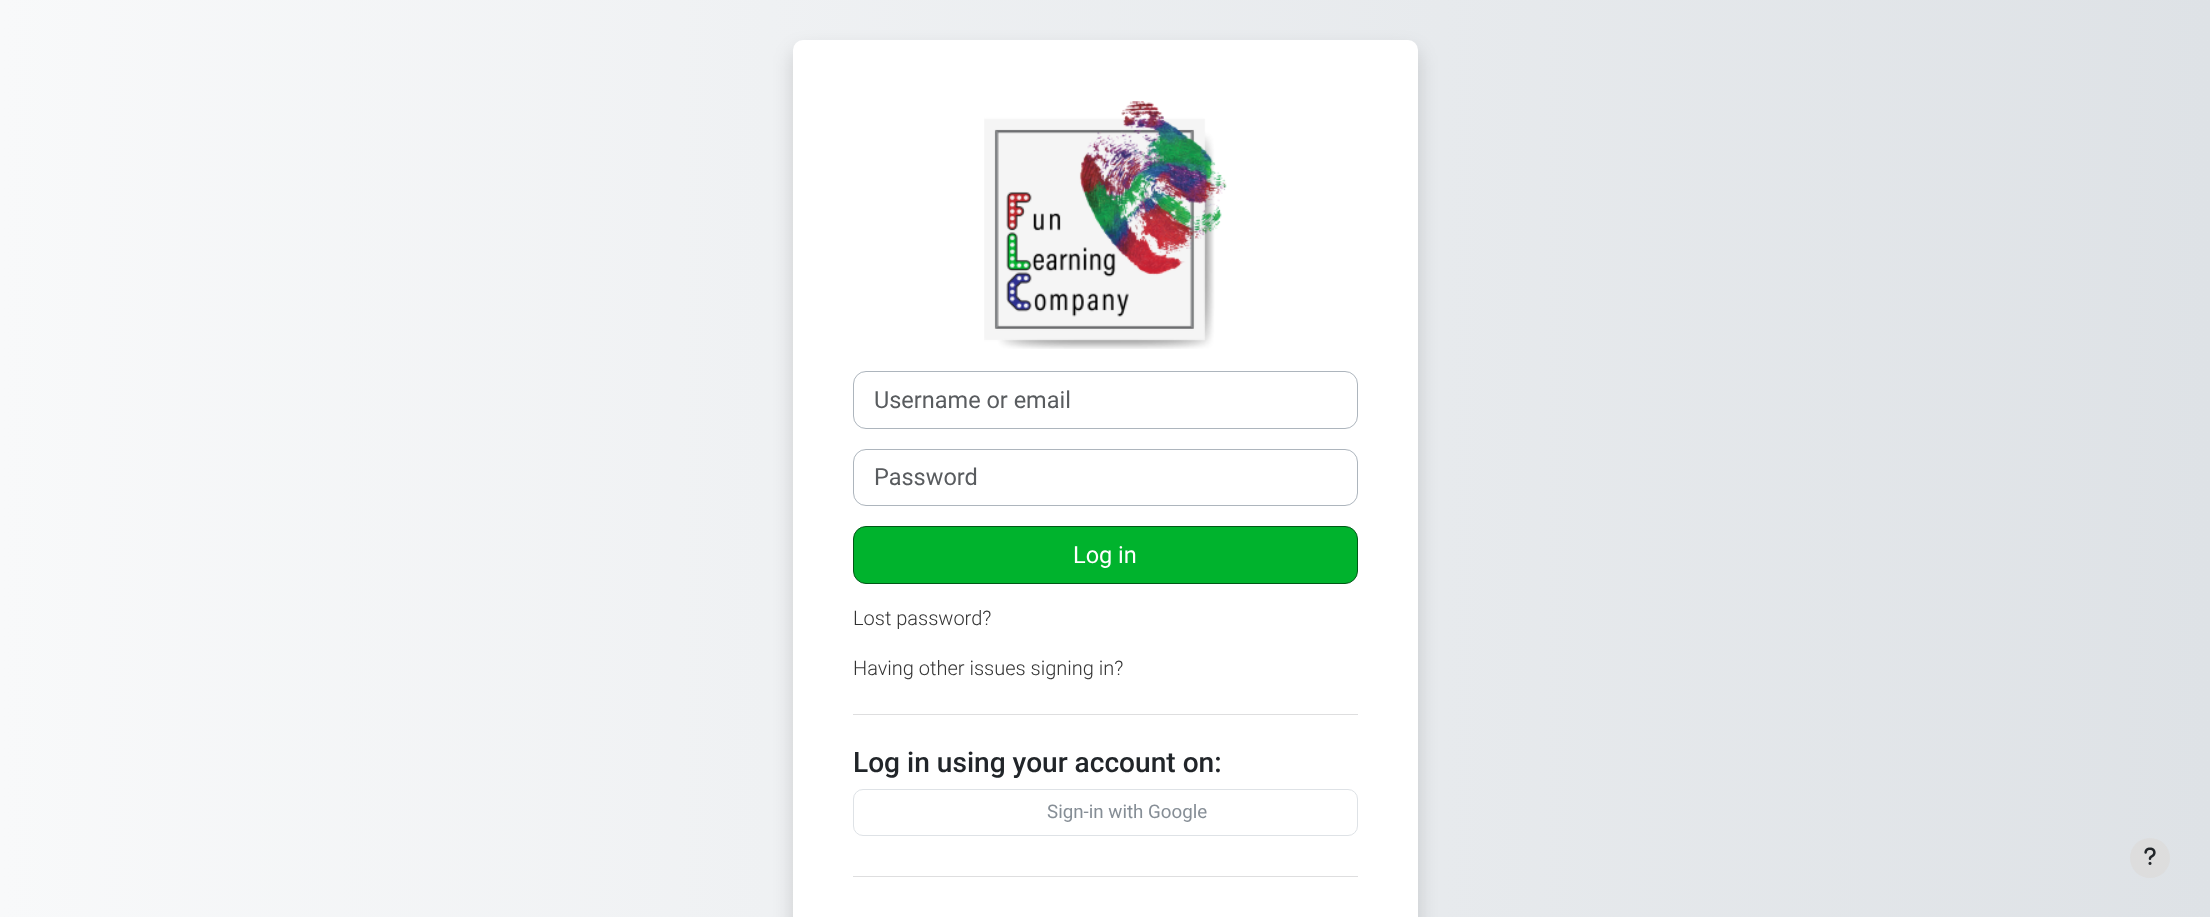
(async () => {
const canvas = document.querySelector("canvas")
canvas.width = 2210
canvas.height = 917
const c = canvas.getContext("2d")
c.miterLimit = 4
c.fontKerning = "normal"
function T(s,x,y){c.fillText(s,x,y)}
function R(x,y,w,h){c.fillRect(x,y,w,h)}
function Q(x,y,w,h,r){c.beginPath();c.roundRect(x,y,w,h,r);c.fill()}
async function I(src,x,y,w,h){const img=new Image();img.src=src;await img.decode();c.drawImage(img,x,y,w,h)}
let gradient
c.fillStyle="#fff"
R(0,0,2210,917)
gradient = c.createLinearGradient(0,604,2210,604)
gradient.addColorStop(0,"#f8f9fa")
gradient.addColorStop(1,"#dee2e6")
c.fillStyle = gradient
R(0,0,2210,917)
c.fillStyle="#00000026"
c.filter="blur(10px)"
c.beginPath()
c.roundRect(793,50,625,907,10)
c.fill()
c.filter="none"
c.fillStyle="#fff"
Q(793,40,625,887,10)
await I("1.png",984,101,243,248)
c.beginPath()
c.roundRect(853.5,371.5,504,57,12.5)
c.strokeStyle="#adb5bd"
c.stroke()
c.font="23.5px Roboto"
c.fillStyle="#595c5f"
T("Username or email",874,408)
c.beginPath()
c.roundRect(853.5,449.5,504,56,12.5)
c.stroke()
T("Password",874,485)
c.fillStyle="#00b32d"
c.beginPath()
c.roundRect(853.5,526.5,504,57,12.5)
c.fill()
c.strokeStyle="#005816"
c.stroke()
c.fillStyle="#fff"
T("Log in",1073,563)
c.font="300 20px Roboto"
c.fillStyle="#333"
T("Lost password?",853,625)
T("Having other issues signing in?",853,675)
c.fillStyle="#dededf"
R(853,714,505,1)
c.font="500 28.1px Roboto"
c.fillStyle="#212529"
T("Log in using your account on:",853,772)
c.beginPath()
c.roundRect(853.5,789.5,504,46,9.5)
c.strokeStyle="#dee2e6"
c.stroke()
c.font="18.75px Roboto"
c.fillStyle="#868e96"
T("Sign-in with Google",1047,818)
c.fillStyle="#dededf"
R(853,876,505,1)
c.fillStyle="#ddd"
c.beginPath()
c.arc(2150,858,20,0,7)
c.fill()
await I("2.png",2144,847,12,18)
})()
